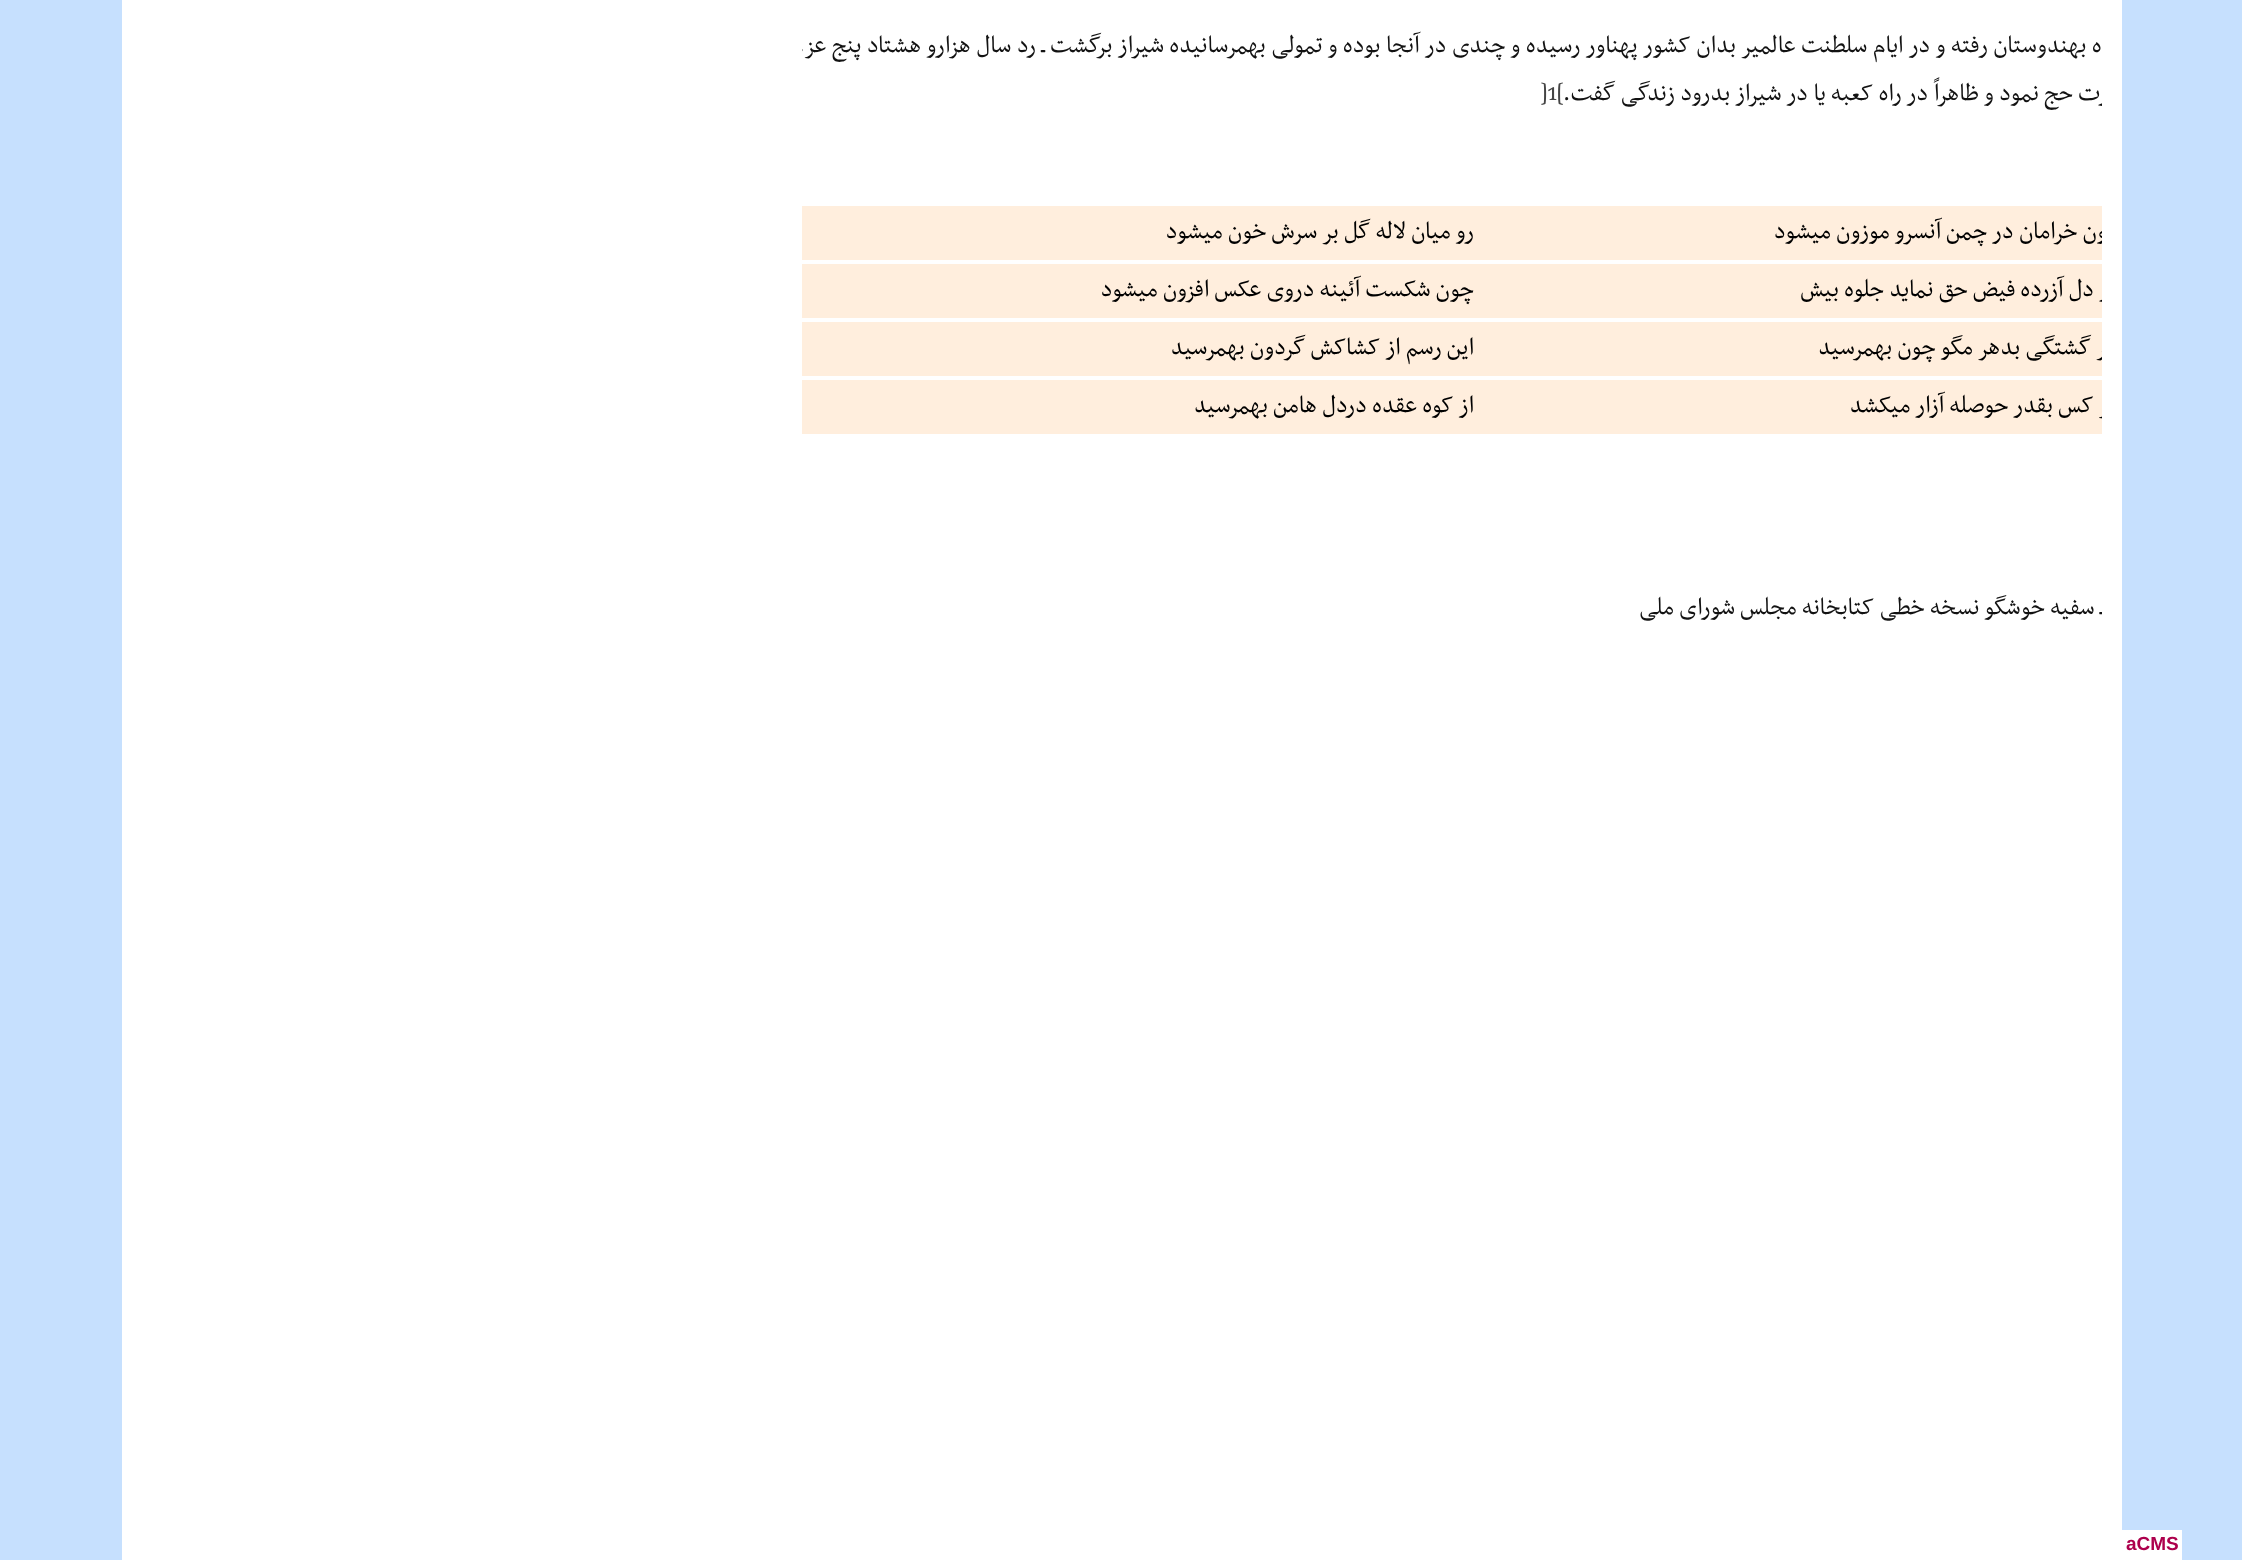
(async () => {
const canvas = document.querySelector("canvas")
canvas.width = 2242
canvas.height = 1560
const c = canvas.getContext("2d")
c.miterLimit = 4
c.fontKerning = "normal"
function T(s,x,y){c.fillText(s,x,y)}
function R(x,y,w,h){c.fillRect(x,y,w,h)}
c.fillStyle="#c6e0fe"
R(0,0,2242,1560)
c.fillStyle="#fff"
R(122,0,2000,1560)
c.save()
c.beginPath()
c.rect(802,0,1300,702)
c.clip()
c.wordSpacing="0.25px"
c.direction="rtl"
c.font="28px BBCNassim"
c.fillStyle="#121212"
T("آنگاه بهندوستان رفته و در ایام سلطنت عالمیر بدان کشور پهناور رسیده و چندی در آنجا بوده و تمولی بهمرسانیده شیراز برگشت ـ رد سال هزارو هشتاد پنج عزم",2131,52)
c.wordSpacing="0px"
T("زیارت حج نمود و ظاهراً در راه کعبه یا در شیراز بدرود زندگی گفت.",2131,100)
c.restore()
c.font="28px BBCNassim"
c.fillStyle="#444"
T("]1[",1541,100)
c.fillStyle="#fed"
R(802,206,1300,54)
c.save()
c.beginPath()
c.rect(802,0,1300,702)
c.clip()
c.direction="rtl"
c.fillStyle="#000"
T("چون خرامان در چمن آنسرو موزون میشود",2121,238)
c.restore()
c.direction="rtl"
c.fillStyle="#000"
T("رو میان لاله گل بر سرش خون میشود",1474,238)
c.fillStyle="#fed"
R(802,264,1300,54)
c.save()
c.beginPath()
c.rect(802,0,1300,702)
c.clip()
c.fillStyle="#000"
T("در دل آزرده فیض حق نماید جلوه بیش",2121,296)
c.restore()
c.fillStyle="#000"
T("چون شکست آئینه دروی عکس افزون میشود",1474,296)
c.fillStyle="#fed"
R(802,322,1300,54)
c.save()
c.beginPath()
c.rect(802,0,1300,702)
c.clip()
c.fillStyle="#000"
T("سر گشتگی بدهر مگو چون بهمرسید",2121,354)
c.restore()
c.fillStyle="#000"
T("این رسم از کشاکش گردون بهمرسید",1474,354)
c.fillStyle="#fed"
R(802,380,1300,54)
c.save()
c.beginPath()
c.rect(802,0,1300,702)
c.clip()
c.fillStyle="#000"
T("هر کس بقدر حوصله آزار میکشد",2121,412)
c.restore()
c.fillStyle="#000"
T("از کوه عقده دردل هامن بهمرسید",1474,412)
c.save()
c.beginPath()
c.rect(802,0,1300,702)
c.clip()
c.fillStyle="#121212"
T("ـ سفیه خوشگو نسخه خطی کتابخانه مجلس شورای ملی",2103,614)
c.restore()
c.fillStyle="#fff"
R(2122,1530,60,30)
c.direction="ltr"
c.font="bold 19px Liberation Sans"
c.fillStyle="#ad004d"
T("aCMS",2126,1550)
})()
